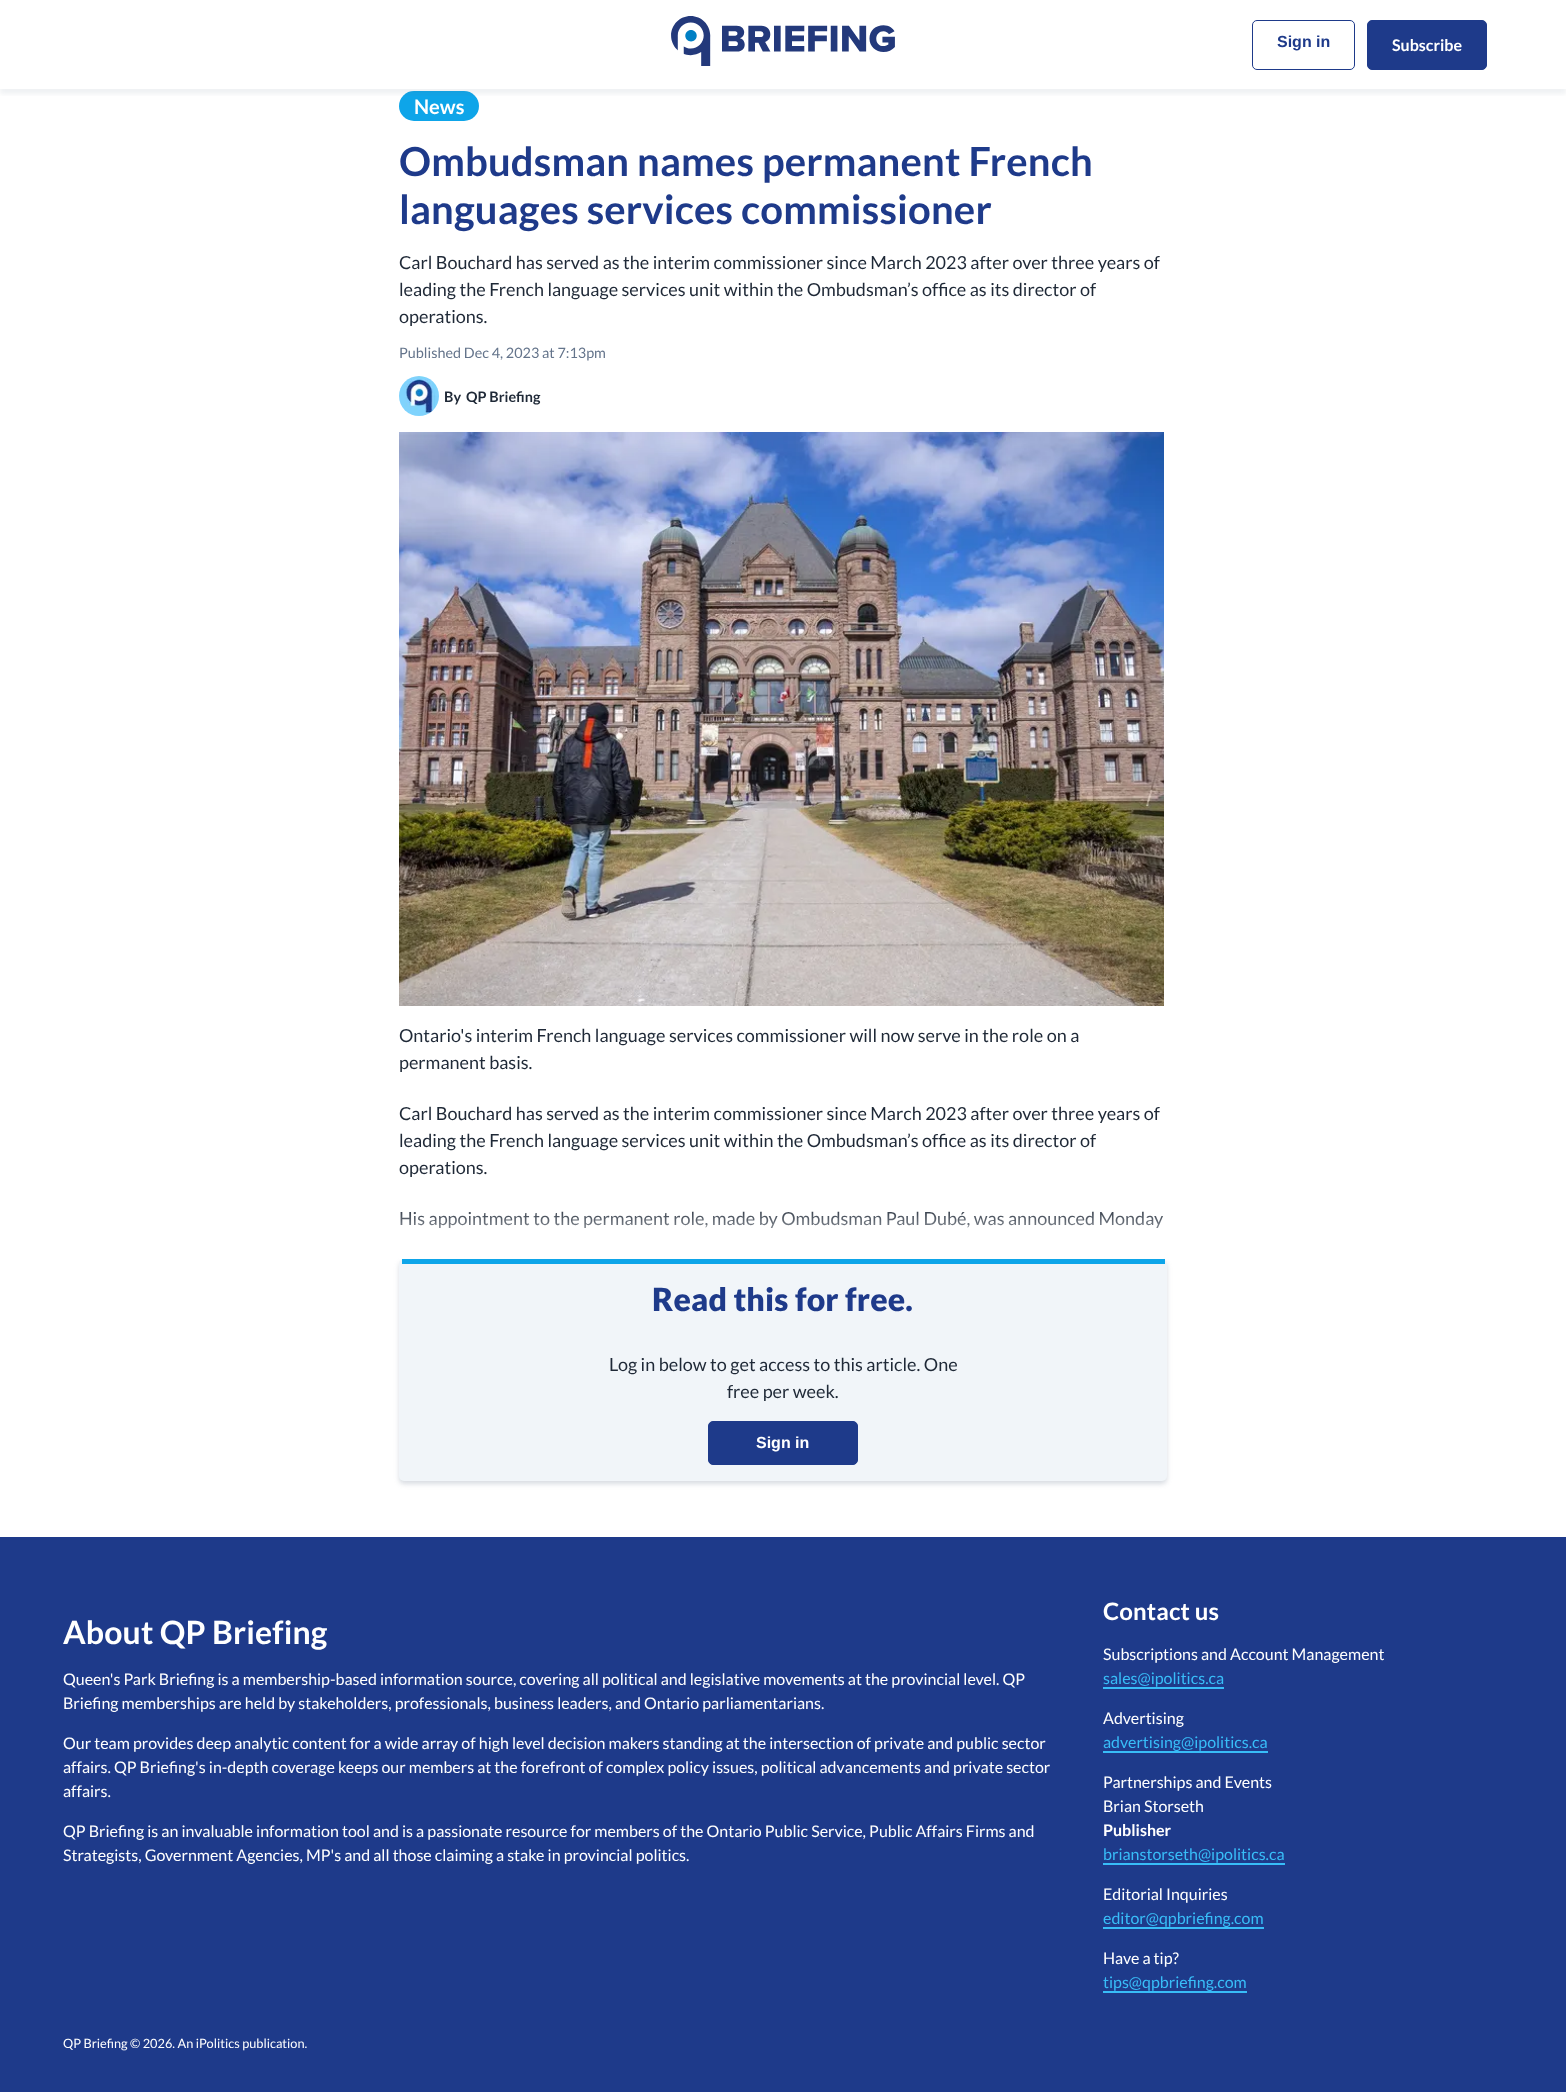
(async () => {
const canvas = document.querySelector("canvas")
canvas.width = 1566
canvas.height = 2092
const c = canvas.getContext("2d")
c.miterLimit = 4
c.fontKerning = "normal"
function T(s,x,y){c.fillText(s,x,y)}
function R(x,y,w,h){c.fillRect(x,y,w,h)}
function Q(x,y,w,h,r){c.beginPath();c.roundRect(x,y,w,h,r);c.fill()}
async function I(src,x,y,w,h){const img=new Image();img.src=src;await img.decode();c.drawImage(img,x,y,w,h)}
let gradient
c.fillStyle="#fff"
R(0,0,1566,2092)
c.fillStyle="#0ea5e9"
Q(399,91,80,30,15)
c.save()
c.beginPath()
c.rect(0,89,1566,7)
c.clip()
c.fillStyle="#64748b1a"
c.filter="blur(2.5px)"
c.beginPath()
c.rect(0,5,1566,89)
c.fill()
c.filter="none"
c.restore()
await I("1.png",671,16,224,50)
c.beginPath()
c.roundRect(1252.5,20.5,102,49,4.5)
c.strokeStyle="#1e3a8a"
c.stroke()
c.font="bold 16px Liberation Sans"
c.fillStyle="#1e3a8a"
T("Sign in",1277,47)
c.beginPath()
c.roundRect(1367.5,20.5,119,49,4.5)
c.fill()
c.stroke()
c.font="bold 16px Lato"
c.fillStyle="#fff"
T("Subscribe",1392,51)
c.font="bold 20px Lato"
T("News",414,114)
c.letterSpacing="0.15px"
c.font="bold 40px Lato"
c.fillStyle="#1e3a8a"
T("Ombudsman names permanent French",399,176)
T("languages services commissioner",399,224)
c.letterSpacing="0px"
c.font="18px Lato"
c.fillStyle="#1f2937"
T("Carl Bouchard has served as the interim commissioner since March 2023 after over three years of",399,269)
T("leading the French language services unit within the Ombudsman’s office as its director of",399,296)
T("operations.",399,323)
c.font="14.4px Lato"
c.fillStyle="#64748b"
T("Published Dec 4, 2023 at 7:13pm",399,358)
await I("2.png",399,376,40,40)
c.font="bold 14.4px Lato"
c.fillStyle="#1f2937"
T("By",444,402)
T("QP Briefing",466,402)
await I("3.png",399,432,765,574)
c.font="18px Lato"
T("Ontario's interim French language services commissioner will now serve in the role on a",399,1042)
T("permanent basis.",399,1069)
T("Carl Bouchard has served as the interim commissioner since March 2023 after over three years of",399,1120)
T("leading the French language services unit within the Ombudsman’s office as its director of",399,1147)
T("operations.",399,1174)
T("His appointment to the permanent role, made by Ombudsman Paul Dubé, was announced Monday",399,1225)
c.fillStyle="#64748b40"
c.filter="blur(2.5px)"
c.beginPath()
c.roundRect(399,1262,768,222,5)
c.fill()
c.filter="none"
gradient = c.createLinearGradient(783,1205,783,1259)
gradient.addColorStop(0,"#ffffff00")
gradient.addColorStop(1,"#fff")
c.fillStyle = gradient
R(400,1211,763,48)
c.fillStyle="#f1f5f9"
Q(399,1259,768,222,5)
c.fillStyle="#0ea5e9"
R(402,1259,763,5)
c.letterSpacing="0.15px"
c.font="900 32px Lato"
c.fillStyle="#1e3a8a"
T("Read this for free.",652,1311)
c.letterSpacing="0px"
c.font="18px Lato"
c.fillStyle="#1f2937"
T("Log in below to get access to this article. One",609,1371)
T("free per week.",727,1398)
c.fillStyle="#1e3a8a"
c.beginPath()
c.roundRect(708.5,1421.5,149,43,4.5)
c.fill()
c.stroke()
c.font="bold 16px Liberation Sans"
c.fillStyle="#fff"
T("Sign in",756,1448)
c.fillStyle="#1e3a8a"
R(0,1537,1566,555)
c.letterSpacing="0.15px"
c.font="bold 32px Lato"
c.fillStyle="#fff"
T("About QP Briefing",63,1644)
c.letterSpacing="0px"
c.font="16px Lato"
T("Queen's Park Briefing is a membership-based information source, covering all political and legislative movements at the provincial level. QP",63,1685)
T("Briefing memberships are held by stakeholders, professionals, business leaders, and Ontario parliamentarians.",63,1709)
T("Our team provides deep analytic content for a wide array of high level decision makers standing at the intersection of private and public sector",63,1749)
T("affairs. QP Briefing's in-depth coverage keeps our members at the forefront of complex policy issues, political advancements and private sector",63,1773)
T("affairs.",63,1797)
T("QP Briefing is an invaluable information tool and is a passionate resource for members of the Ontario Public Service, Public Affairs Firms and",63,1837)
T("Strategists, Government Agencies, MP's and all those claiming a stake in provincial politics.",63,1861)
c.letterSpacing="0.15px"
c.font="bold 24px Lato"
T("Contact us",1103,1620)
c.letterSpacing="0px"
c.font="16px Lato"
T("Subscriptions and Account Management",1103,1660)
c.fillStyle="#38bdf8"
T("sales@ipolitics.ca",1103,1684)
R(1103,1687,121,2)
c.fillStyle="#fff"
T("Advertising",1103,1724)
c.fillStyle="#38bdf8"
T("advertising@ipolitics.ca",1103,1748)
R(1103,1751,165,2)
c.fillStyle="#fff"
T("Partnerships and Events",1103,1788)
T("Brian Storseth",1103,1812)
c.font="bold 16px Lato"
T("Publisher",1103,1836)
c.font="16px Lato"
c.fillStyle="#38bdf8"
T("brianstorseth@ipolitics.ca",1103,1860)
R(1103,1863,182,2)
c.fillStyle="#fff"
T("Editorial Inquiries",1103,1900)
c.fillStyle="#38bdf8"
T("editor@qpbriefing.com",1103,1924)
R(1103,1927,161,2)
c.fillStyle="#fff"
T("Have a tip?",1103,1964)
c.fillStyle="#38bdf8"
T("tips@qpbriefing.com",1103,1988)
R(1103,1991,144,2)
c.font="12.75px Lato"
c.fillStyle="#fff"
T("QP Briefing © 2026. An iPolitics publication.",63,2048)
})()
